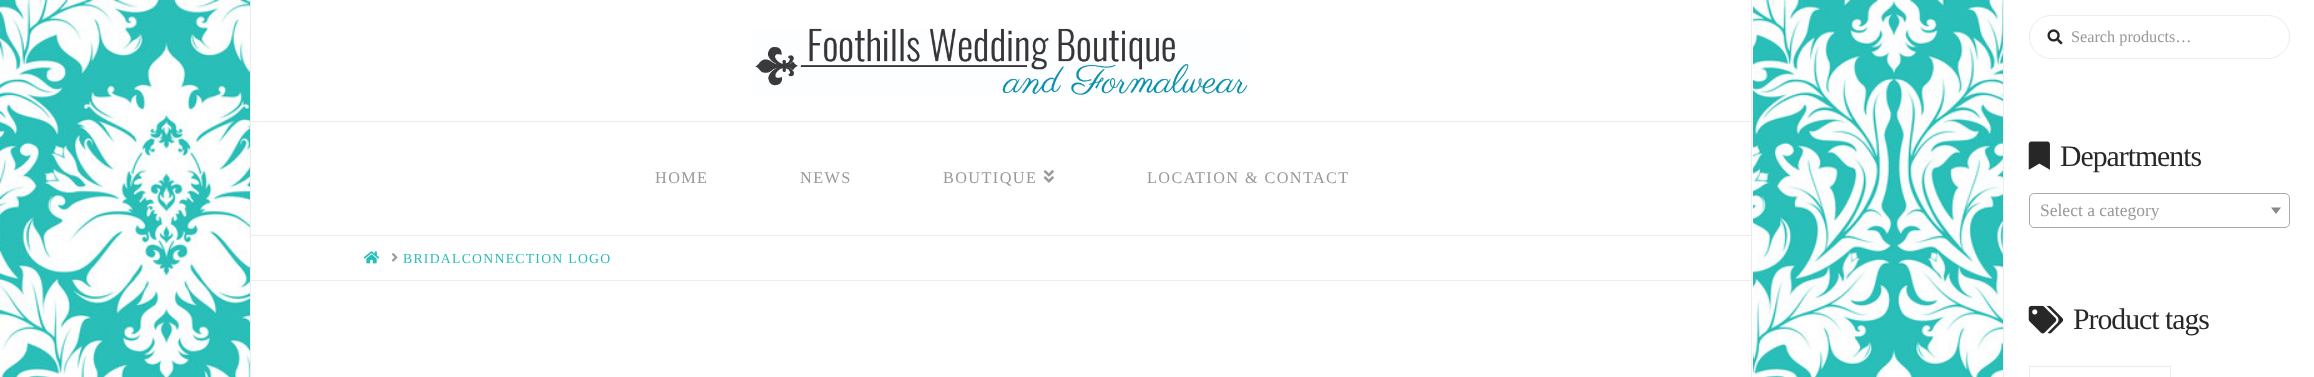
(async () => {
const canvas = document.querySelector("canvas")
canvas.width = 2314
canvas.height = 377
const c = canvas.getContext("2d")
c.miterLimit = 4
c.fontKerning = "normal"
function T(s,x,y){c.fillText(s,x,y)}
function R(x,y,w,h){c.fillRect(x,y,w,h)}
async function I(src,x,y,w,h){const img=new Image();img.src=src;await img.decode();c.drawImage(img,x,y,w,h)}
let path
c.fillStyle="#fff"
R(0,0,2314,377)
await I("1.png",0,0,2003,377)
R(251,0,1502,377)
c.fillStyle="#ececec"
R(1751,0,1,377)
R(250,0,1,377)
R(251,121,1500,1)
await I("2.png",752,28,498,70)
R(251,235,1500,1)
c.letterSpacing="1.4px"
c.font="16.25px Liberation Serif"
c.fillStyle="#999"
T("HOME",655,183)
T("NEWS",800,183)
T("BOUTIQUE",943,183)
await I("3.png",1043,170,11,13)
T("LOCATION & CONTACT",1147,183)
c.fillStyle="#ececec"
R(251,280,1500,1)
await I("4.png",363,251,17,13)
await I("5.png",392,253,6,9)
c.letterSpacing="1.25px"
c.font="13.75px Liberation Serif"
c.fillStyle="#29beb8"
T("BRIDALCONNECTION LOGO",403,263)
c.fillStyle="#ececec"
R(2003,0,1,377)
c.beginPath()
c.roundRect(2029.5,15.5,260,43,21.5)
c.strokeStyle="#ececec"
c.stroke()
await I("6.png",2047,29,16,16)
c.letterSpacing="0px"
c.font="16.25px Liberation Serif"
c.fillStyle="#999"
T("Search products…",2071,42)
await I("7.png",2028,141,22,29)
c.letterSpacing="-1px"
c.font="29.75px Liberation Serif"
c.fillStyle="#272727"
T("Departments",2060,166)
c.beginPath()
c.roundRect(2029.5,193.5,260,34,4.5)
c.strokeStyle="#aaa"
c.stroke()
c.letterSpacing="0px"
c.font="17.5px Liberation Serif"
c.fillStyle="#999"
T("Select a category",2040,216)
c.fillStyle="#888"
path = new Path2D("M2271 207.5h10l-5 6.5z")
c.fill(path)
await I("8.png",2028,305,36,29)
c.letterSpacing="-1px"
c.font="29.75px Liberation Serif"
c.fillStyle="#272727"
T("Product tags",2073,329)
c.strokeStyle="#ececec"
c.strokeRect(2029.5,366.5,141,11)
})()
